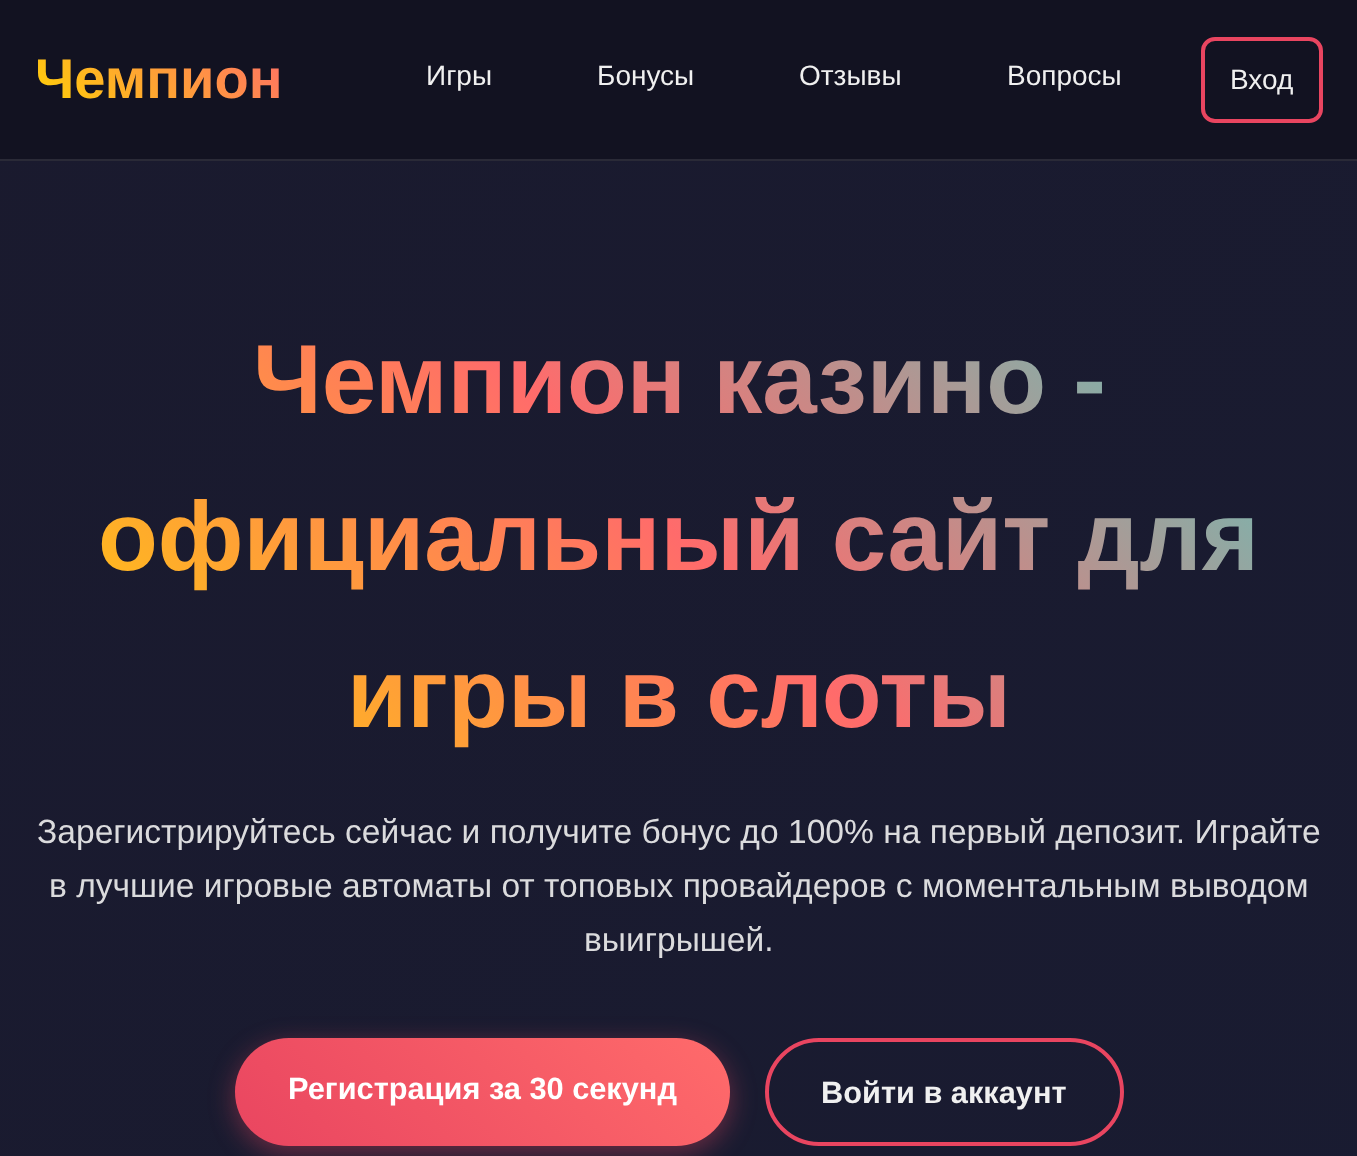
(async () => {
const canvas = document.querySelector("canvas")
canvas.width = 1357
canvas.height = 1156
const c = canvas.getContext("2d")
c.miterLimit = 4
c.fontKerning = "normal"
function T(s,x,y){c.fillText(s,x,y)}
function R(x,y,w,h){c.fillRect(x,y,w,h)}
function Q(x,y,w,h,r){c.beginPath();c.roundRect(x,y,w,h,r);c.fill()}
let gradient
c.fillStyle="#fff"
R(0,0,1357,1156)
gradient = c.createLinearGradient(-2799,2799,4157,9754)
gradient.addColorStop(0,"#1a1a2e")
gradient.addColorStop(1,"#16213e")
c.fillStyle = gradient
R(0,161,1357,995)
c.fillStyle="#121221"
R(0,0,1357,159)
c.fillStyle="#2a2a37"
R(0,159,1357,2)
c.font="bold 56px Liberation Sans"
gradient = c.createLinearGradient(74,164,243,-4.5)
gradient.addColorStop(0,"#ffd700")
gradient.addColorStop(1,"#ff6b6b")
c.fillStyle = gradient
T("Чемпион",35,98)
c.font="28px Liberation Sans"
c.fillStyle="#f0f0f0"
T("Игры",426,85)
T("Бонусы",597,85)
T("Отзывы",799,85)
T("Вопросы",1007,85)
c.beginPath()
c.roundRect(1203,39,118,82,12)
c.strokeStyle="#e94560"
c.lineWidth=4
c.stroke()
T("Вход",1230,89)
c.font="bold 98px Liberation Sans"
gradient = c.createLinearGradient(239,976,1119,97)
gradient.addColorStop(0,"#ffd700")
gradient.addColorStop(.5,"#ff6b6b")
gradient.addColorStop(1,"#4ecdc4")
c.fillStyle = gradient
T("Чемпион казино -",253,413)
T("официальный сайт для",98,570)
T("игры в слоты",347,727)
c.font="33.6px Liberation Sans"
c.fillStyle="#dbdbdd"
T("Зарегистрируйтесь сейчас и получите бонус до 100% на первый депозит. Играйте",37,843)
T("в лучшие игровые автоматы от топовых провайдеров с моментальным выводом",49,897)
T("выигрышей.",584,951)
c.fillStyle="#e9456066"
c.filter="blur(13px)"
c.beginPath()
c.roundRect(235,1045,495,108,54)
c.fill()
c.filter="none"
gradient = c.createLinearGradient(331,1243,633,941)
gradient.addColorStop(0,"#e94560")
gradient.addColorStop(1,"#ff6b6b")
c.fillStyle = gradient
Q(235,1038,495,108,54)
c.font="bold 30.75px Liberation Sans"
c.fillStyle="#fff"
T("Регистрация за 30 секунд",288,1099)
c.beginPath()
c.roundRect(767,1040,355,104,52)
c.stroke()
c.fillStyle="#f0f0f0"
T("Войти в аккаунт",821,1103)
})()
